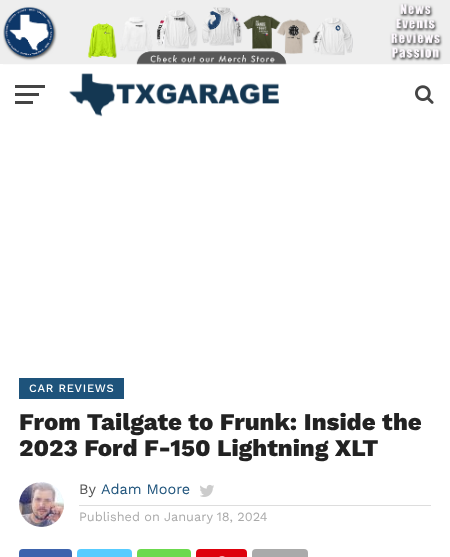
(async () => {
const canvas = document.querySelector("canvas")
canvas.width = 450
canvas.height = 557
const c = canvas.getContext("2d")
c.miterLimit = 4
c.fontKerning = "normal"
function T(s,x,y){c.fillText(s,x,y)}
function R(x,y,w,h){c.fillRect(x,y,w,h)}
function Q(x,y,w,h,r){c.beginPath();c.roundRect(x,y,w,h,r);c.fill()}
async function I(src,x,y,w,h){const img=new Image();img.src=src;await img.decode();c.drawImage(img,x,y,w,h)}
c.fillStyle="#fff"
R(0,0,450,557)
c.fillStyle="#eee"
R(0,0,450,64)
await I("1.png",3,3,440,62)
c.fillStyle="#444"
R(15,85,30,3)
R(15,93,24,3)
R(15,101,18,3)
await I("2.png",69,73,210,44)
await I("3.png",415,85,19,19)
c.fillStyle="#1e537b"
R(19,378,105,21)
c.letterSpacing="0.75px"
c.font="500 11.25px Work Sans"
c.fillStyle="#fff"
T("CAR REVIEWS",29,392)
c.letterSpacing="0px"
c.font="800 24px Work Sans"
c.fillStyle="#222"
T("From Tailgate to Frunk: Inside the",19,430)
T("2023 Ford F-150 Lightning XLT",19,456)
await I("4.png",19,482,45,45)
c.fillStyle="#ddd"
R(79,505,352,1)
c.font="14.5px Work Sans"
c.fillStyle="#555"
T("By",79,494)
c.fillStyle="#1e537b"
T("Adam Moore",101,494)
await I("5.png",200,484,14,13)
c.font="12.75px Work Sans"
c.fillStyle="#aaa"
T("Published on",79,521)
T("January 18, 2024",164,521)
c.fillStyle="#3e64ad"
Q(19,549,53,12,4)
c.fillStyle="#58ccff"
Q(77,549,55,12,4)
c.fillStyle="#6cd94e"
Q(137,549,54,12,4)
c.fillStyle="#de010d"
Q(196,549,51,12,4)
await I("6.png",219,556,6,1)
c.fillStyle="#aaa"
Q(252,549,56,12,4)
})()
